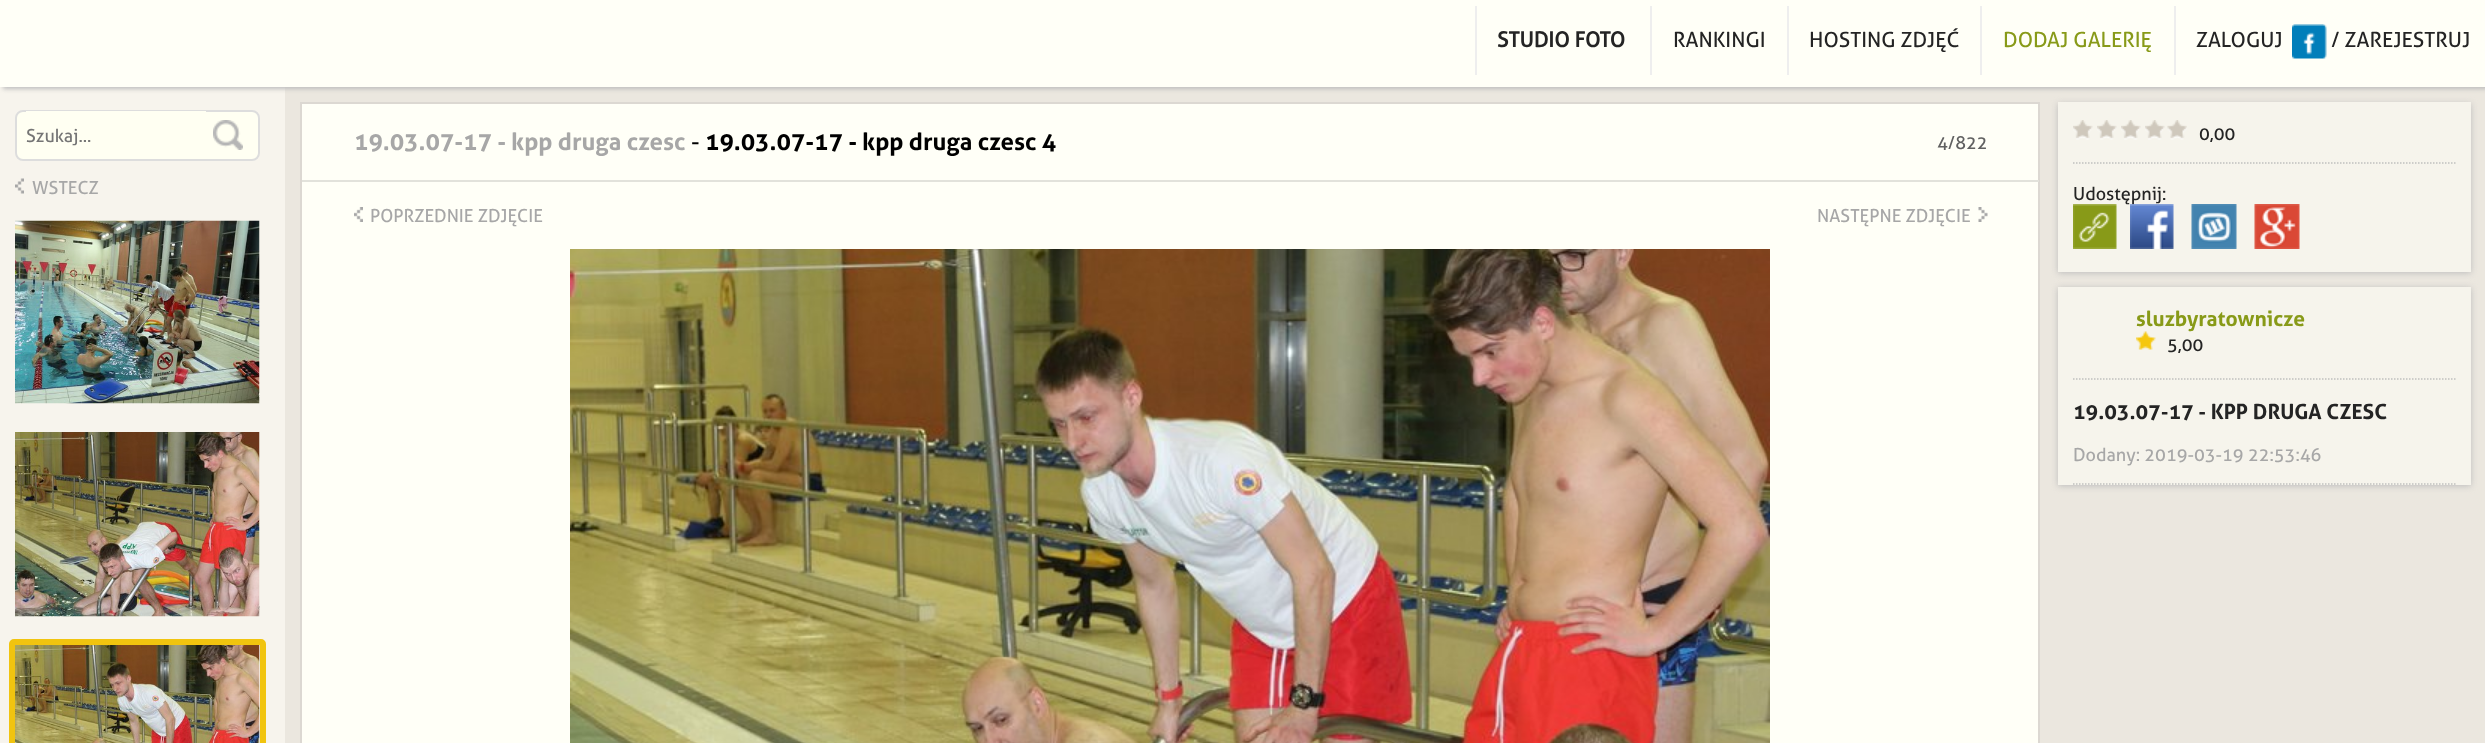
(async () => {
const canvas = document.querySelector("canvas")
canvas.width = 2485
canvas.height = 743
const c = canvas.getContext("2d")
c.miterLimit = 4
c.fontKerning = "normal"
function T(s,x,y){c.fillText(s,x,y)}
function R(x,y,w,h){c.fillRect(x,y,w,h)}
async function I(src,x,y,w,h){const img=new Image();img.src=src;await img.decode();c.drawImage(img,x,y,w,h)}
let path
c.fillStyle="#f7f4ed"
R(0,0,2485,743)
c.fillStyle="#ebe7df"
R(285,87,2200,656)
c.fillStyle="#bdbdbd"
c.filter="blur(2px)"
c.beginPath()
c.rect(3,-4,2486,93)
c.fill()
c.filter="none"
c.fillStyle="#fffff7"
R(0,0,2485,87)
c.fillStyle="#eee"
R(1475,6,2,69)
c.font="bold 21px 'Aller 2'"
c.fillStyle="#242424"
T("STUDIO FOTO",1497,47)
c.fillStyle="#eee"
R(1650,6,2,69)
c.font="21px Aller"
c.fillStyle="#242424"
T("RANKINGI",1673,47)
c.fillStyle="#eee"
R(1787,6,2,69)
c.fillStyle="#242424"
T("HOSTING ZDJĘĆ",1809,47)
c.fillStyle="#eee"
R(1980,6,2,69)
c.fillStyle="#889a18"
T("DODAJ GALERIĘ",2003,47)
c.fillStyle="#eee"
R(2174,6,2,69)
c.fillStyle="#242424"
T("ZALOGUJ",2196,47)
await I("1.png",2292,24,35,35)
T("/ ZAREJESTRUJ",2331,47)
c.fillStyle="#fffff2"
c.beginPath()
c.roundRect(16,111,243,49,7)
c.fill()
c.strokeStyle="#ddd"
c.lineWidth=2
c.stroke()
R(26,111,180,1)
c.font="18px Aller"
c.fillStyle="#757575"
T("Szukaj...",26,142)
await I("2.png",213,120,30,30)
await I("3.png",15,178,9,16)
c.fillStyle="#a7a7a7"
T("WSTECZ",32,194)
await I("4.png",15,220,245,184)
await I("5.png",15,432,245,185)
c.beginPath()
c.roundRect(12,642,251,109,2)
c.strokeStyle="#f1c40f"
c.lineWidth=6
c.stroke()
await I("6.png",15,645,245,98)
c.fillStyle="#fffff7"
c.beginPath()
c.rect(301,103,1738,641)
c.fill()
c.strokeStyle="#dcd8d2"
c.lineWidth=2
c.stroke()
c.fillStyle="#e2e2db"
R(302,180,1737,2)
c.font="bold 24px Aller"
c.fillStyle="#a7a7a7"
T("19.03.07-17 - kpp druga czesc",354,150)
c.font="24px Aller"
c.fillStyle="#000"
T("-",691,150)
c.font="bold 24px Aller"
T("19.03.07-17 - kpp druga czesc 4",705,150)
c.font="18px Aller"
c.fillStyle="#616161"
T("4/822",1937,149)
await I("7.png",354,207,9,15)
c.fillStyle="#a7a7a7"
T("POPRZEDNIE ZDJĘCIE",370,222)
T("NASTĘPNE ZDJĘCIE",1817,222)
await I("8.png",1978,207,10,15)
await I("9.png",570,249,1200,494)
c.fillStyle="#bdbdbd"
c.filter="blur(3px)"
c.beginPath()
c.rect(2058,104,413,169)
c.fill()
c.filter="none"
c.fillStyle="#f6f4ec"
R(2058,102,413,170)
path = new Path2D("M2073 163h382.5")
c.strokeStyle="#c0c0be"
c.lineWidth=1.5
c.setLineDash([1.5,1.5])
c.stroke(path)
await I("10.png",2073,120,20,20)
await I("11.png",2097,120,20,20)
await I("11.png",2121,120,20,20)
await I("10.png",2145,120,20,20)
await I("12.png",2167,120,20,20)
c.fillStyle="#242424"
T("0,00",2199,140)
await I("13.png",2073,204,44,45)
T("Udostępnij:",2073,200)
await I("14.png",2130,204,44,45)
await I("15.png",2191,204,46,45)
await I("16.png",2254,204,46,45)
c.fillStyle="#bdbdbd"
c.filter="blur(3px)"
c.beginPath()
c.rect(2058,288,413,198)
c.fill()
c.filter="none"
c.fillStyle="#f6f4ec"
R(2058,287,413,198)
path = new Path2D("M2073 379h382.5")
c.stroke(path)
c.font="bold 21px Aller"
c.fillStyle="#889a18"
T("sluzbyratownicze",2136,326)
await I("17.png",2136,331,20,19)
c.font="18px Aller"
c.fillStyle="#242424"
T("5,00",2167,351)
path = new Path2D("M2073 484h382.5")
c.stroke(path)
c.font="bold 21px Aller"
T("19.03.07-17 - KPP DRUGA CZESC",2073,419)
c.font="18px Aller"
c.fillStyle="#a7a7a7"
T("Dodany: 2019-03-19 22:53:46",2073,461)
})()
